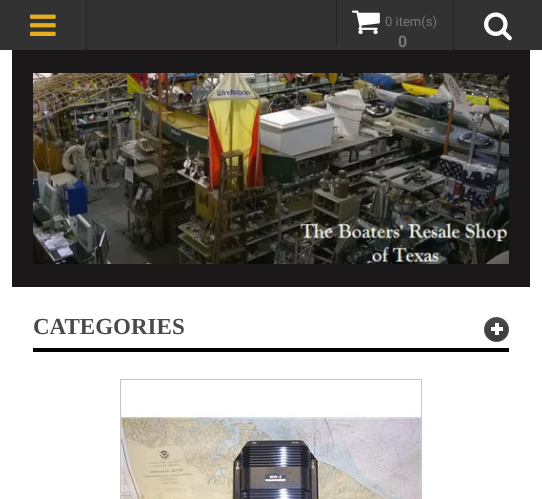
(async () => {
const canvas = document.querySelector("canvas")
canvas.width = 542
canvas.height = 499
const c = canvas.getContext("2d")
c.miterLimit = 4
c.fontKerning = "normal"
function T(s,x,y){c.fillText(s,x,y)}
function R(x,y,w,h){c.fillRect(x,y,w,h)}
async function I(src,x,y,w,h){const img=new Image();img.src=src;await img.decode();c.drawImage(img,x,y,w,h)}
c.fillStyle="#fff"
R(0,0,542,499)
c.fillStyle="#323232"
R(0,0,542,50)
c.fillStyle="#232323"
R(86,0,1,50)
await I("1.png",30,14,26,22)
R(453,0,1,50)
await I("2.png",484,12,28,29)
c.fillStyle="#1b181a"
R(12,50,518,237)
c.fillStyle="#232323"
R(336,0,1,46)
await I("3.png",352,10,28,25)
c.font="13px Roboto"
c.fillStyle="#777"
T("0 item(s)",385,26)
c.font="bold 16px Roboto"
T("0",398,47)
await I("4.png",33,73,476,191)
await I("5.png",484,317,25,25)
c.fillStyle="#000"
R(33,348,476,4)
c.font="bold 23px Liberation Serif"
c.fillStyle="#4b494a"
T("CATEGORIES",33,334)
c.strokeStyle="#c6c5c5"
c.strokeRect(120.5,379.5,301,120)
await I("6.png",121,412,300,87)
})()
